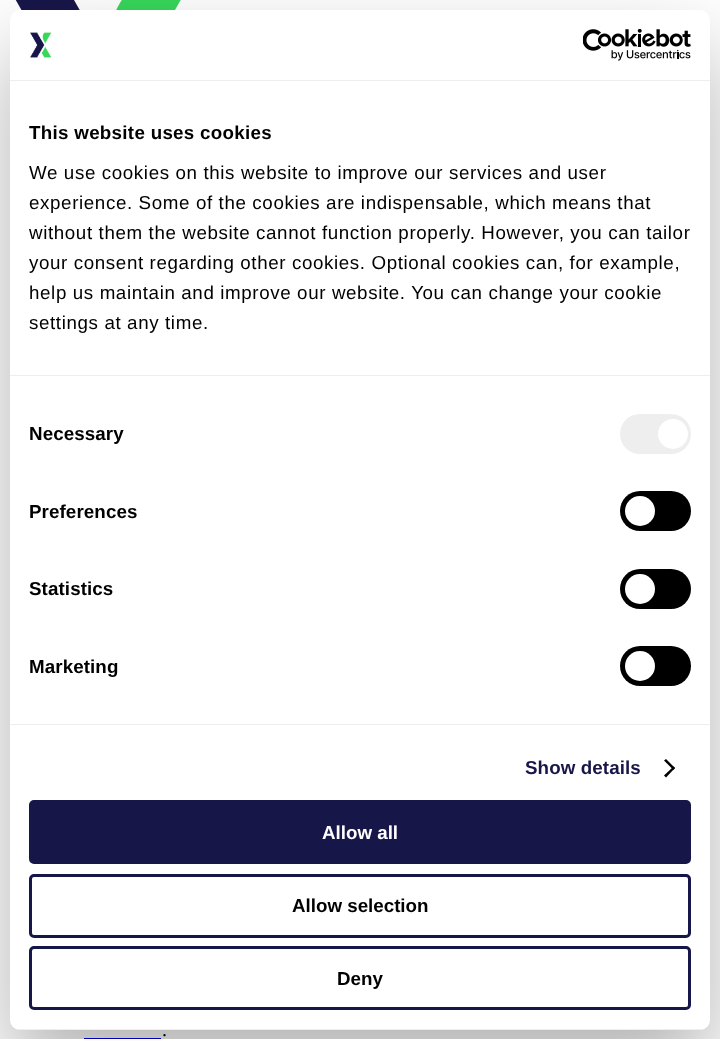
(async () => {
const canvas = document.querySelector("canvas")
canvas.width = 720
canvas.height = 1039
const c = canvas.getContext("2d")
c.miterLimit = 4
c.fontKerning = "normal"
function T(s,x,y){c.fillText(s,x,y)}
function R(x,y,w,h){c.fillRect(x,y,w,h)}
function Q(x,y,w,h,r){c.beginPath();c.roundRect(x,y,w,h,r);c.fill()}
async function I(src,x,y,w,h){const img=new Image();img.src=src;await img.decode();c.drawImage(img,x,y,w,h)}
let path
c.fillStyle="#fff"
R(0,0,720,1039)
await I("1.png",15,0,166,10)
c.fillStyle="#00e"
R(84,1038,77,1)
c.fillStyle="#0000004d"
c.filter="blur(42.5px)"
c.beginPath()
c.roundRect(10,50,700,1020,10)
c.fill()
c.filter="none"
c.fillStyle="#fff"
Q(10,10,700,1020,10)
c.fillStyle="#eee"
R(10,80,700,1)
await I("2.png",30,32,22,26)
await I("3.png",583,29,108,32)
R(10,375,700,1)
c.letterSpacing="0.3px"
c.font="bold 18.75px Liberation Sans"
c.fillStyle="#000"
T("This website uses cookies",29,139)
c.letterSpacing="0.62px"
c.font="18.75px Liberation Sans"
T("We use cookies on this website to improve our services and user",29,179)
T("experience. Some of the cookies are indispensable, which means that",29,209)
T("without them the website cannot function properly. However, you can tailor",29,239)
T("your consent regarding other cookies. Optional cookies can, for example,",29,269)
T("help us maintain and improve our website. You can change your cookie",29,299)
T("settings at any time.",29,329)
c.fillStyle="#eee"
R(10,724,700,1)
c.letterSpacing="0.1px"
c.font="bold 18.75px Liberation Sans"
c.fillStyle="#000"
T("Necessary",29,440)
c.fillStyle="#eee"
Q(620,414,71,40,20)
c.fillStyle="#fff"
c.beginPath()
c.arc(673,434,15,0,7)
c.fill()
c.fillStyle="#000"
T("Preferences",29,518)
Q(620,491,71,40,20)
c.fillStyle="#fff"
c.beginPath()
c.arc(640,511,15,0,7)
c.fill()
c.fillStyle="#000"
T("Statistics",29,595)
Q(620,569,71,40,20)
c.fillStyle="#fff"
c.beginPath()
c.arc(640,589,15,0,7)
c.fill()
c.fillStyle="#000"
T("Marketing",29,673)
Q(620,646,71,40,20)
c.fillStyle="#fff"
c.beginPath()
c.arc(640,666,15,0,7)
c.fill()
c.fillStyle="#171649"
T("Show details",525,774)
c.fillStyle="#000"
path = new Path2D("M666 759l9 9l-1.5 2l-9.5-9.5z")
c.fill(path)
path = new Path2D("M673.5 766.5l1.5 1.5l-9 9.5l-2-2z")
c.fill(path)
c.save()
c.beginPath()
c.roundRect(10,10,700,1020,10)
c.clip()
c.fillStyle="#eee"
R(10,1029,700,1)
c.restore()
c.fillStyle="#171649"
c.beginPath()
c.roundRect(30.5,801.5,659,61,3.5)
c.fill()
c.strokeStyle="#171649"
c.lineWidth=3
c.stroke()
c.letterSpacing="0px"
c.fillStyle="#fff"
T("Allow all",322,839)
c.beginPath()
c.roundRect(30.5,875.5,659,61,3.5)
c.stroke()
c.fillStyle="#000"
T("Allow selection",292,912)
c.beginPath()
c.roundRect(30.5,947.5,659,61,3.5)
c.stroke()
T("Deny",337,985)
c.font="20px Liberation Serif"
T(".",162,1036)
})()
